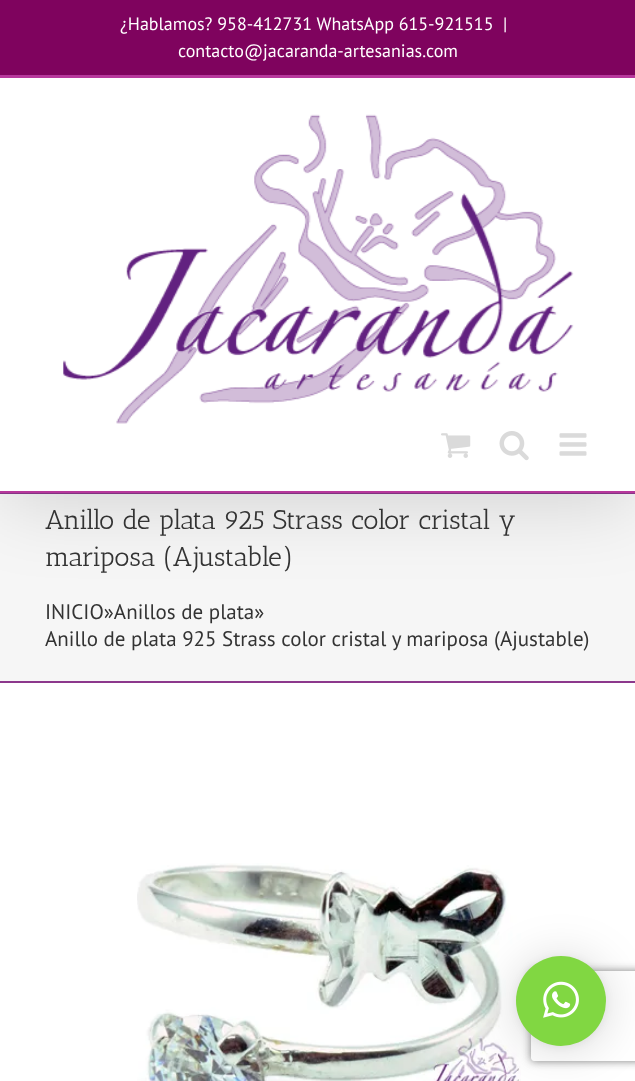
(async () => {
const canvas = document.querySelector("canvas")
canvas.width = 635
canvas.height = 1081
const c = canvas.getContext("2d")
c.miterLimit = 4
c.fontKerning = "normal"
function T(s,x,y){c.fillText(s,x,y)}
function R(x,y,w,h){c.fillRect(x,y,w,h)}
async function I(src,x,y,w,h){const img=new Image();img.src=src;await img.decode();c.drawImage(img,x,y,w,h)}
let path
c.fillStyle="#fff"
R(0,0,635,1081)
c.fillStyle="#f6f6f6"
R(0,494,635,187)
c.fillStyle="#8c388c"
R(0,493,635,1)
c.fillStyle="#00000024"
c.filter="blur(37.5px)"
c.beginPath()
c.rect(3,18,630,486)
c.fill()
c.filter="none"
c.fillStyle="#7f035e"
R(0,0,635,75)
c.fillStyle="#b7389c"
R(0,75,635,3)
c.font="18px PT Sans"
c.fillStyle="#fff"
T("¿Hablamos? 958-412731 WhatsApp 615-921515",120,30)
T("|",503,30)
T("contacto@jacaranda-artesanias.com",178,57)
R(0,78,635,413)
c.fillStyle="#b7389c"
R(0,491,635,2)
await I("1.png",63,114,511,310)
await I("2.png",441,433,30,25)
await I("3.png",499,431,30,30)
await I("4.png",559,433,28,23)
c.fillStyle="#8c388c"
R(0,681,635,2)
c.font="27px Antic Slab"
c.fillStyle="#333"
T("Anillo de plata 925 Strass color cristal y",45,529)
T("mariposa (Ajustable)",45,566)
c.font="21px PT Sans"
T("INICIO»Anillos de plata»",45,619)
T("Anillo de plata 925 Strass color cristal y mariposa (Ajustable)",45,646)
await I("5.png",137,863,384,218)
c.fillStyle="#00000029"
c.filter="blur(24px)"
c.beginPath()
c.roundRect(516,959,90,90,45)
c.fill()
c.filter="none"
c.fillStyle="#0000000f"
c.filter="blur(4.5px)"
c.beginPath()
c.roundRect(516,957,90,90,45)
c.fill()
c.filter="none"
c.save()
path = new Path2D("M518 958h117v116h-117zm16 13h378c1.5 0 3 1.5 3 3v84c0 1.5-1.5 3-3 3h-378c-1.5 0-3-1.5-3-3v-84c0-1.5 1.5-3 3-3z")
c.clip(path,"evenodd")
c.fillStyle="#808080"
c.filter="blur(4px)"
c.beginPath()
c.roundRect(531,971,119,90,3)
c.fill()
c.filter="none"
c.restore()
c.fillStyle="#81d742"
c.beginPath()
c.arc(561,1001,45,0,7)
c.fill()
await I("6.png",543,981,36,37)
})()
